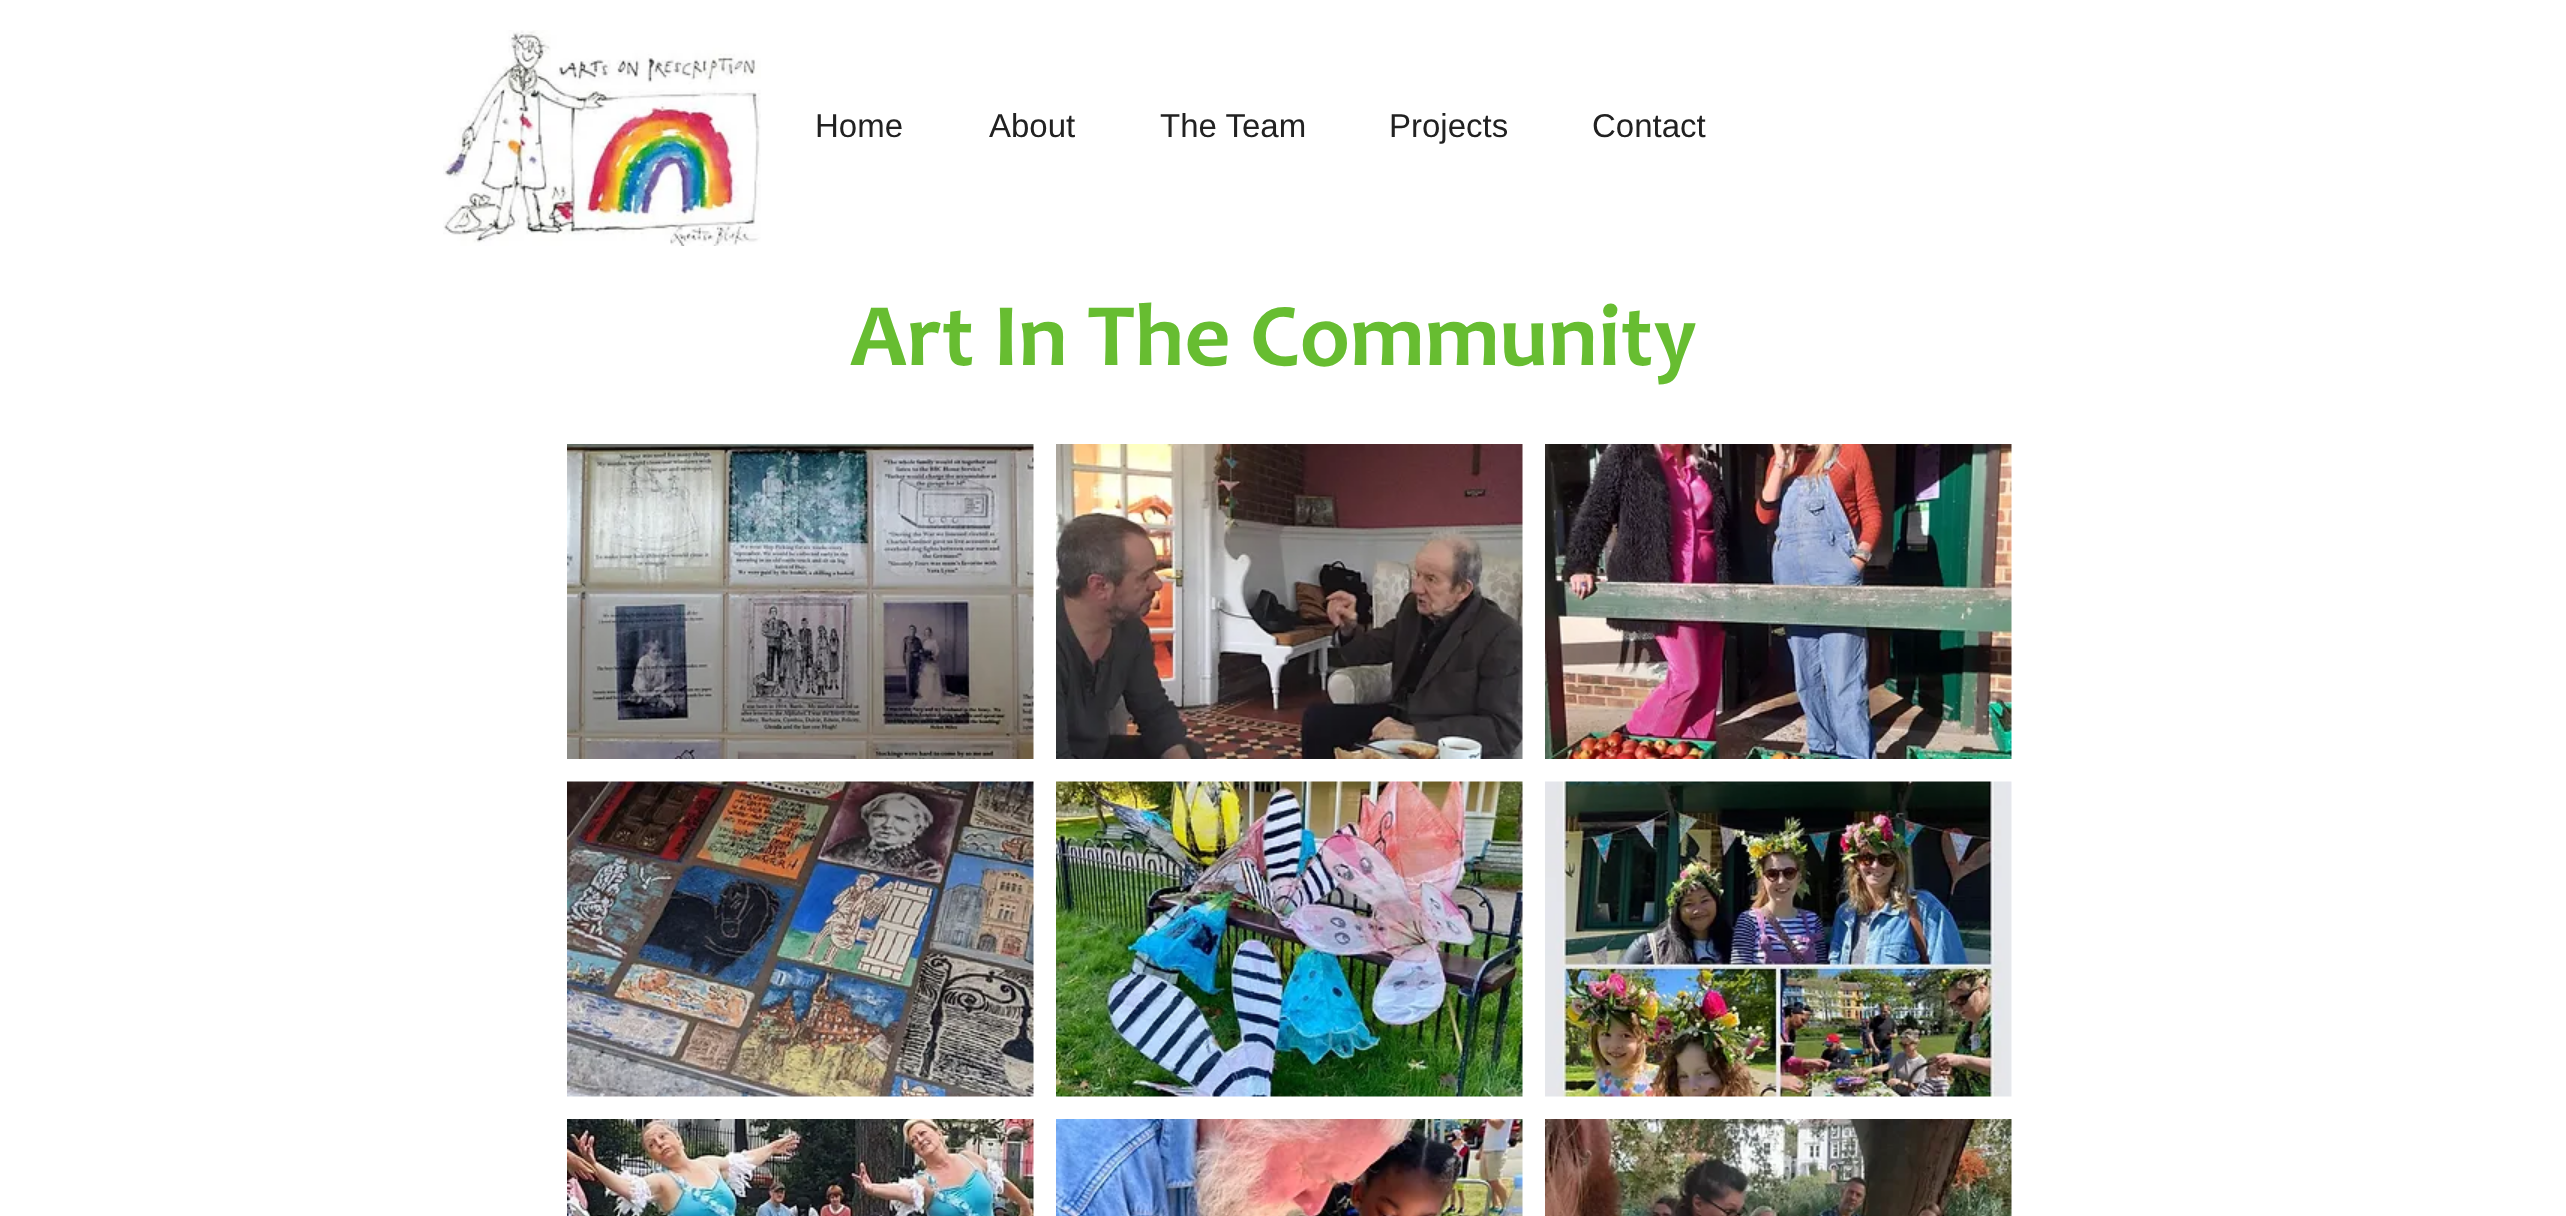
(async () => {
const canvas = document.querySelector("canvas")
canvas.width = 2566
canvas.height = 1216
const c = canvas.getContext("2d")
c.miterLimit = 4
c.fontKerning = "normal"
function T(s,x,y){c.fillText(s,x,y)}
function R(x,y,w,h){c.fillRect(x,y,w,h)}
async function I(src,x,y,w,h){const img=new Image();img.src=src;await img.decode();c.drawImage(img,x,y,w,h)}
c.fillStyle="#fff"
R(0,0,2566,1216)
await I("1.png",443,30,318,216)
c.font="33px Liberation Sans"
c.fillStyle="#212121"
T("Home",815,137)
T("About",989,137)
T("The Team",1160,137)
T("Projects",1389,137)
T("Contact",1592,137)
c.font="bold 90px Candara"
c.fillStyle="#67bd31"
T("Art In The Community",850,365)
await I("2.png",567,444,467,315)
await I("3.png",1056,444,467,315)
await I("4.png",1545,444,467,315)
await I("5.png",567,781,467,316)
await I("6.png",1056,781,467,316)
await I("7.png",1545,781,467,316)
await I("8.png",567,1119,467,97)
await I("9.png",1056,1119,467,97)
await I("10.png",1545,1119,467,97)
})()
